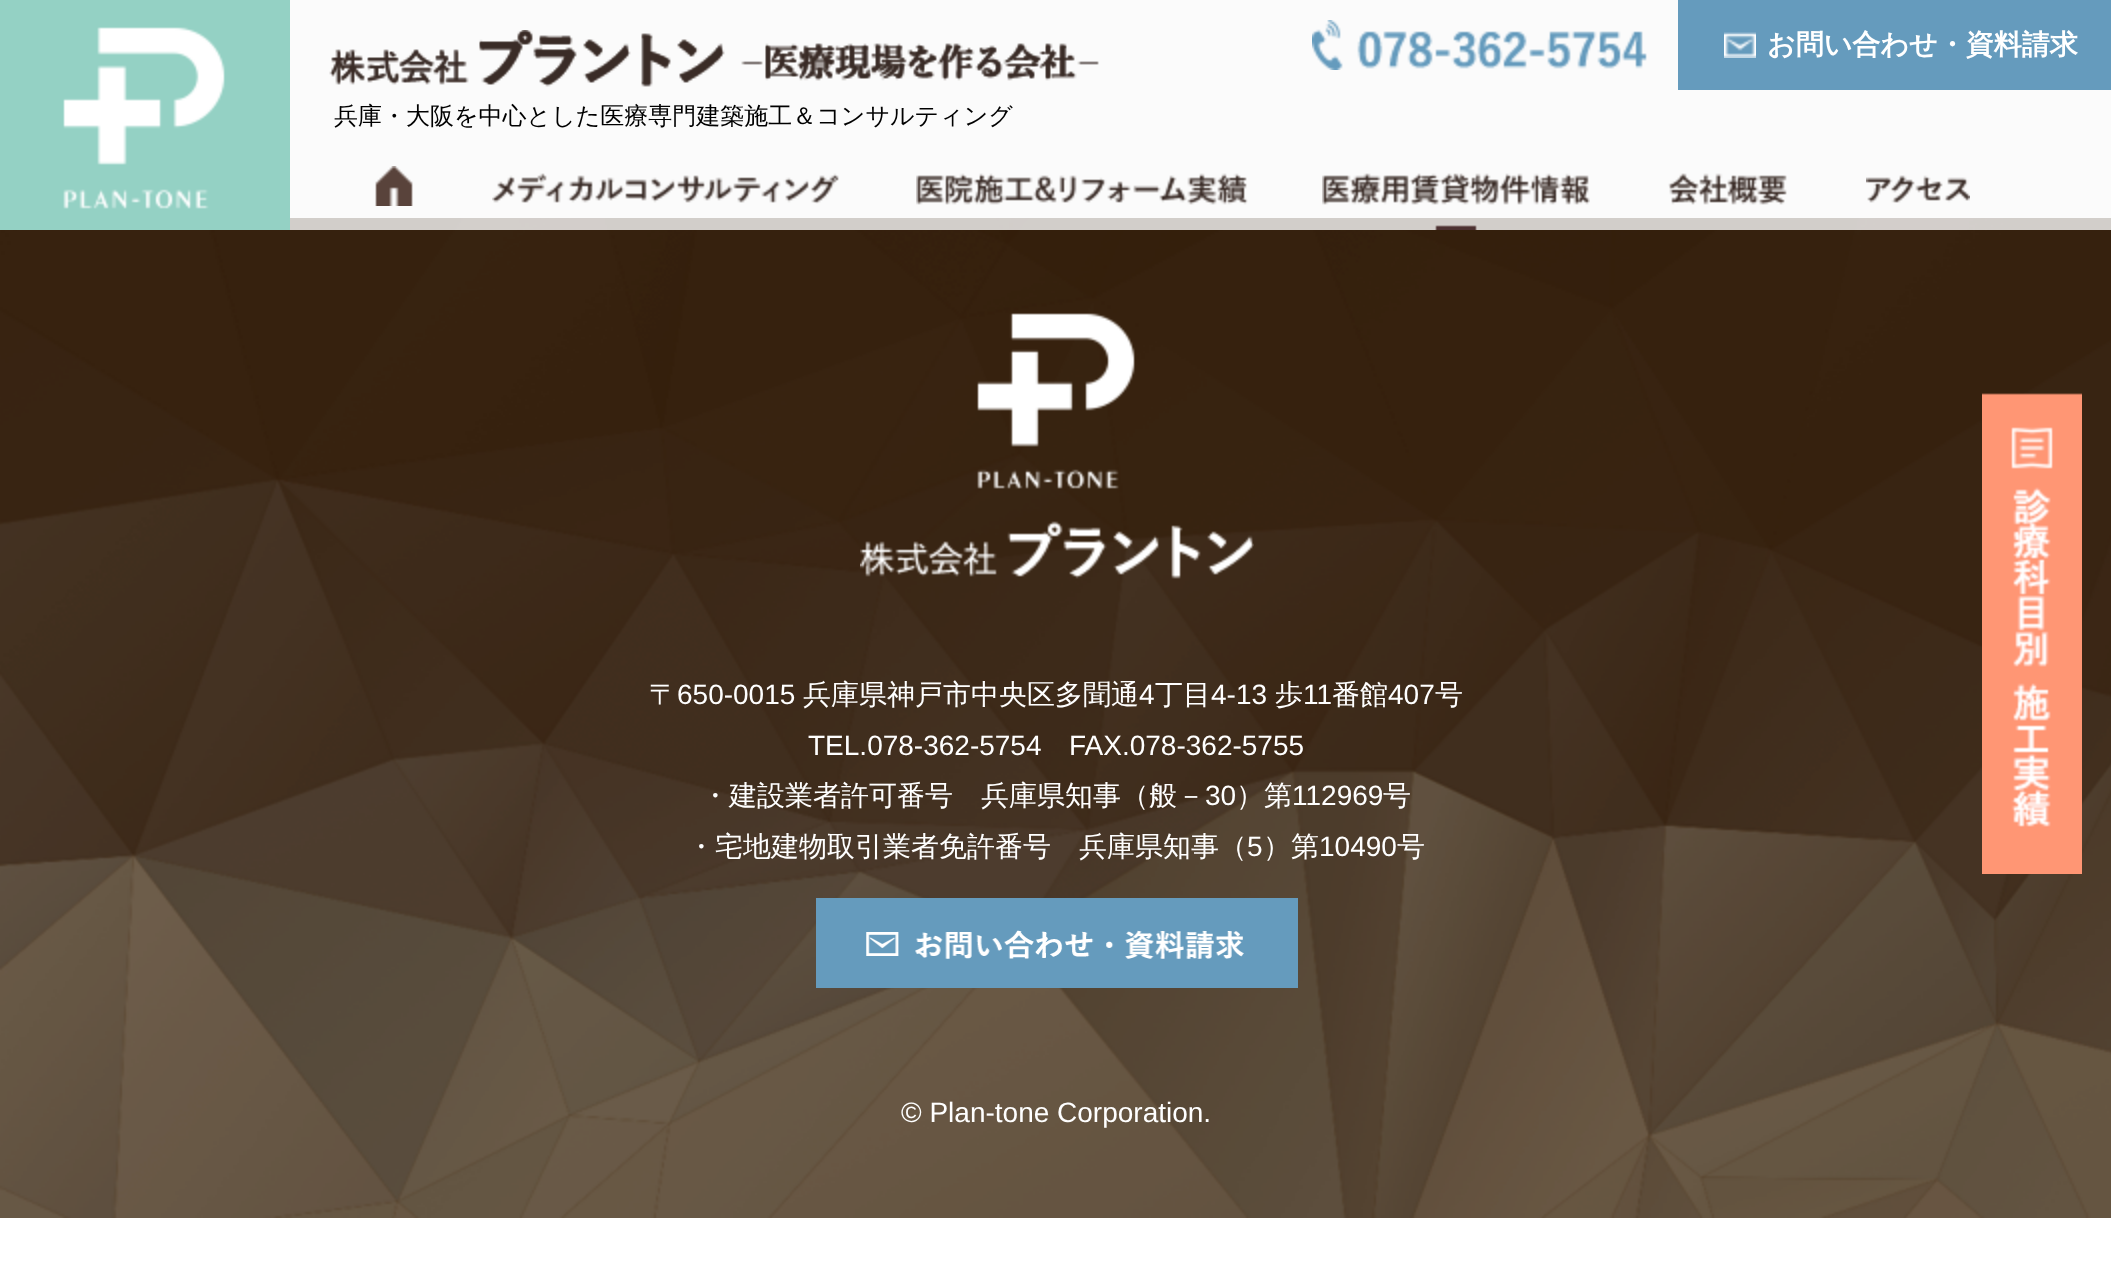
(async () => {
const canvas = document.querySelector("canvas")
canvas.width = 2111
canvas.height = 1266
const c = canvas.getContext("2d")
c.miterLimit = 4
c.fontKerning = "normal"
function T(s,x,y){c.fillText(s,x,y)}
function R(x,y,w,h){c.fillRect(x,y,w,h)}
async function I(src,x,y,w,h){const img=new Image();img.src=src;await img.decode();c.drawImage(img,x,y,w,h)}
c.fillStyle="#fff"
R(0,0,2111,1266)
await I("13.png",0,218,2111,1000)
c.fillStyle="#fafafacc"
R(290,0,1821,230)
await I("1.png",0,0,290,230)
await I("2.png",1312,20,335,50)
c.fillStyle="#659bbd"
R(1678,0,433,90)
await I("3.png",1724,32,32,26)
c.font="bold 28px WenQuanYi Zen Hei"
c.fillStyle="#fff"
T("お問い合わせ・資料請求",1767,54)
await I("4.png",329,30,770,57)
await I("5.png",329,30,770,57)
c.font="500 24px WenQuanYi Zen Hei"
c.fillStyle="#000"
T("兵庫・大阪を中心とした医療専門建築施工＆コンサルティング",334,124)
await I("6.png",375,166,38,40)
await I("7.png",492,173,347,31)
await I("8.png",916,173,332,32)
await I("9.png",1435,225,42,5)
await I("10.png",1322,173,268,32)
await I("11.png",1668,173,119,32)
await I("12.png",1866,175,104,28)
await I("14.png",860,313,394,266)
c.font="500 28px WenQuanYi Zen Hei"
c.fillStyle="#fff"
T("〒",649,704)
c.font="28px Liberation Sans"
T("650-0015",677,704)
c.font="500 28px WenQuanYi Zen Hei"
T("兵庫県神戸市中央区多聞通",803,704)
c.font="28px Liberation Sans"
T("4",1139,704)
c.font="500 28px WenQuanYi Zen Hei"
T("丁目",1155,704)
c.font="28px Liberation Sans"
T("4-13",1211,704)
c.font="500 28px WenQuanYi Zen Hei"
T("歩",1275,704)
c.font="28px Liberation Sans"
T("11",1303,704)
c.font="500 28px WenQuanYi Zen Hei"
T("番館",1332,704)
c.font="28px Liberation Sans"
T("407",1388,704)
c.font="500 28px WenQuanYi Zen Hei"
T("号",1435,704)
c.font="28px Liberation Sans"
T("TEL.078-362-5754",808,755)
T("FAX.078-362-5755",1069,755)
c.font="500 28px WenQuanYi Zen Hei"
T("・建設業者許可番号　兵庫県知事（般－",701,805)
c.font="28px Liberation Sans"
T("30",1205,805)
c.font="500 28px WenQuanYi Zen Hei"
T("）第",1236,805)
c.font="28px Liberation Sans"
T("112969",1292,805)
c.font="500 28px WenQuanYi Zen Hei"
T("号",1383,805)
T("・宅地建物取引業者免許番号　兵庫県知事（",687,856)
c.font="28px Liberation Sans"
T("5",1247,856)
c.font="500 28px WenQuanYi Zen Hei"
T("）第",1263,856)
c.font="28px Liberation Sans"
T("10490",1319,856)
c.font="500 28px WenQuanYi Zen Hei"
T("号",1397,856)
await I("15.png",816,898,482,90)
c.font="28px Liberation Sans"
T("© Plan-tone Corporation.",901,1122)
await I("16.png",1982,393,100,481)
})()
